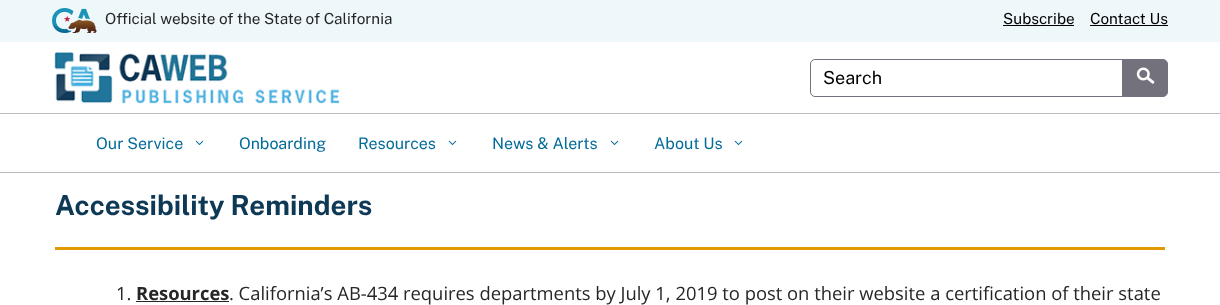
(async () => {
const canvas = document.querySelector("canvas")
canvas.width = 1220
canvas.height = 305
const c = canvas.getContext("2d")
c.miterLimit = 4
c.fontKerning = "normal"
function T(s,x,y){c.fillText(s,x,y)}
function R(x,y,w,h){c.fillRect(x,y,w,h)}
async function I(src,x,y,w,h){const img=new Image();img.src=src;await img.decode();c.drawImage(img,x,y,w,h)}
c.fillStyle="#fff"
R(0,0,1220,305)
c.fillStyle="#eef8fb"
R(0,0,1220,42)
c.fillStyle="#fff"
c.beginPath()
c.roundRect(610,0,1,1,[0,0,.5,.5])
c.fill()
await I("1.png",52,8,45,25)
c.font="15.25px Public Sans"
c.fillStyle="#262626"
T("Official website of the State of California",105,24)
c.fillStyle="#000"
T("Subscribe",1003,24)
R(1003,25,71,1)
T("Contact Us",1090,24)
R(1090,25,78,1)
c.fillStyle="#bcbbc1"
R(0,113,1220,1)
await I("2.png",54,52,286,52)
c.fillStyle="#72717c"
c.beginPath()
c.roundRect(1122.5,59.5,45,37,[0,4.5,4.5,0])
c.fill()
c.strokeStyle="#72717c"
c.stroke()
c.beginPath()
c.roundRect(810.5,59.5,312,37,[4.5,0,0,4.5])
c.stroke()
c.font="18px Public Sans"
c.fillStyle="#000"
T("Search",823,84)
await I("3.png",1136,67,19,17)
c.fillStyle="#bcbbc1"
R(0,172,1220,1)
c.font="16px Public Sans"
c.fillStyle="#046b99"
T("Our Service",96,149)
await I("4.png",195,140,9,5)
T("Onboarding",239,149)
T("Resources",358,149)
await I("4.png",448,140,9,5)
T("News & Alerts",492,149)
await I("4.png",610,140,9,5)
T("About Us",654,149)
await I("4.png",734,140,9,5)
c.font="bold 27.6px Public Sans"
c.fillStyle="#0d3956"
T("Accessibility Reminders",55,215)
c.fillStyle="#e09900"
R(55,247,1110,3)
c.font="18.4px Open Sans"
c.fillStyle="#262626"
T("1.",116,300)
c.font="bold 18.4px Open Sans"
T("Resources",136,300)
R(136,301,93,1)
c.font="18.4px Open Sans"
T(". California’s AB-434 requires departments by July 1, 2019 to post on their website a certification of their state",229,300)
})()
